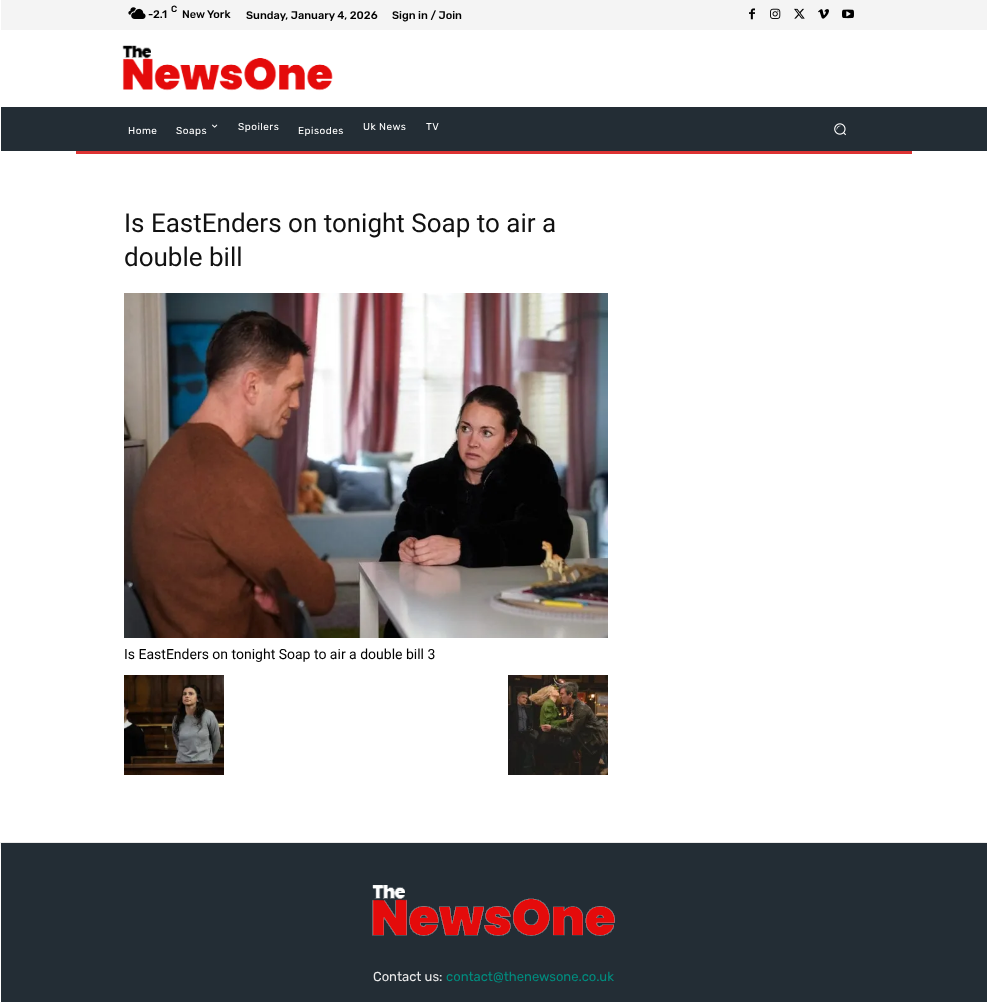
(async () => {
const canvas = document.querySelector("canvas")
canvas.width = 987
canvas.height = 1002
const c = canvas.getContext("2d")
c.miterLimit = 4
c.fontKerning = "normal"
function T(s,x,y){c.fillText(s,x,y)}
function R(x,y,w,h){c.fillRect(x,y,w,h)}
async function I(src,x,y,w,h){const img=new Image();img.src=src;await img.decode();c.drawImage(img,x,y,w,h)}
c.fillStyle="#fff"
R(0,0,987,1002)
c.fillStyle="#f4f4f4"
R(1,0,986,30)
await I("1.png",128,7,18,12)
c.font="500 9px Rubik"
c.fillStyle="#000"
T("C",171,12)
c.font="500 11px Rubik"
T("-2.1",148,18)
T("New York",182,18)
T("Sunday, January 4, 2026",246,19)
T("Sign in / Join",392,19)
await I("2.png",749,8,6,12)
await I("3.png",770,8,11,11)
await I("4.png",794,8,11,11)
await I("5.png",818,9,11,10)
await I("6.png",842,9,12,10)
await I("7.png",122,45,211,46)
c.save()
c.beginPath()
c.rect(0,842,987,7)
c.clip()
c.fillStyle="#0000001f"
c.filter="blur(5px)"
c.beginPath()
c.rect(-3,161,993,684)
c.fill()
c.filter="none"
c.restore()
c.fillStyle="#232d35"
R(1,107,986,44)
c.letterSpacing="0.5px"
c.font="10px Rubik"
c.fillStyle="#fff"
T("Home",128,134)
T("Soaps",176,134)
await I("8.png",212,124,6,4)
T("Spoilers",238,130)
T("Episodes",298,134)
T("Uk News",363,130)
T("TV",426,130)
await I("9.png",834,123,12,13)
c.fillStyle="#d33"
R(76,151,836,3)
c.fillStyle="#fff"
R(0,154,987,10)
c.letterSpacing="0px"
c.font="26px Roboto"
c.fillStyle="#111"
T("Is EastEnders on tonight Soap to air a",124,232)
T("double bill",124,266)
await I("10.png",124,293,484,345)
c.font="14px Roboto"
c.fillStyle="#000"
T("Is EastEnders on tonight Soap to air a double bill 3",124,659)
await I("11.png",124,675,100,100)
await I("12.png",508,675,100,100)
c.fillStyle="#232d35"
R(1,843,986,159)
await I("13.png",372,885,243,51)
c.font="13px Rubik"
c.fillStyle="#eaeaea"
T("Contact us:",373,981)
c.fillStyle="#008d7f"
T("contact@thenewsone.co.uk",446,981)
})()
